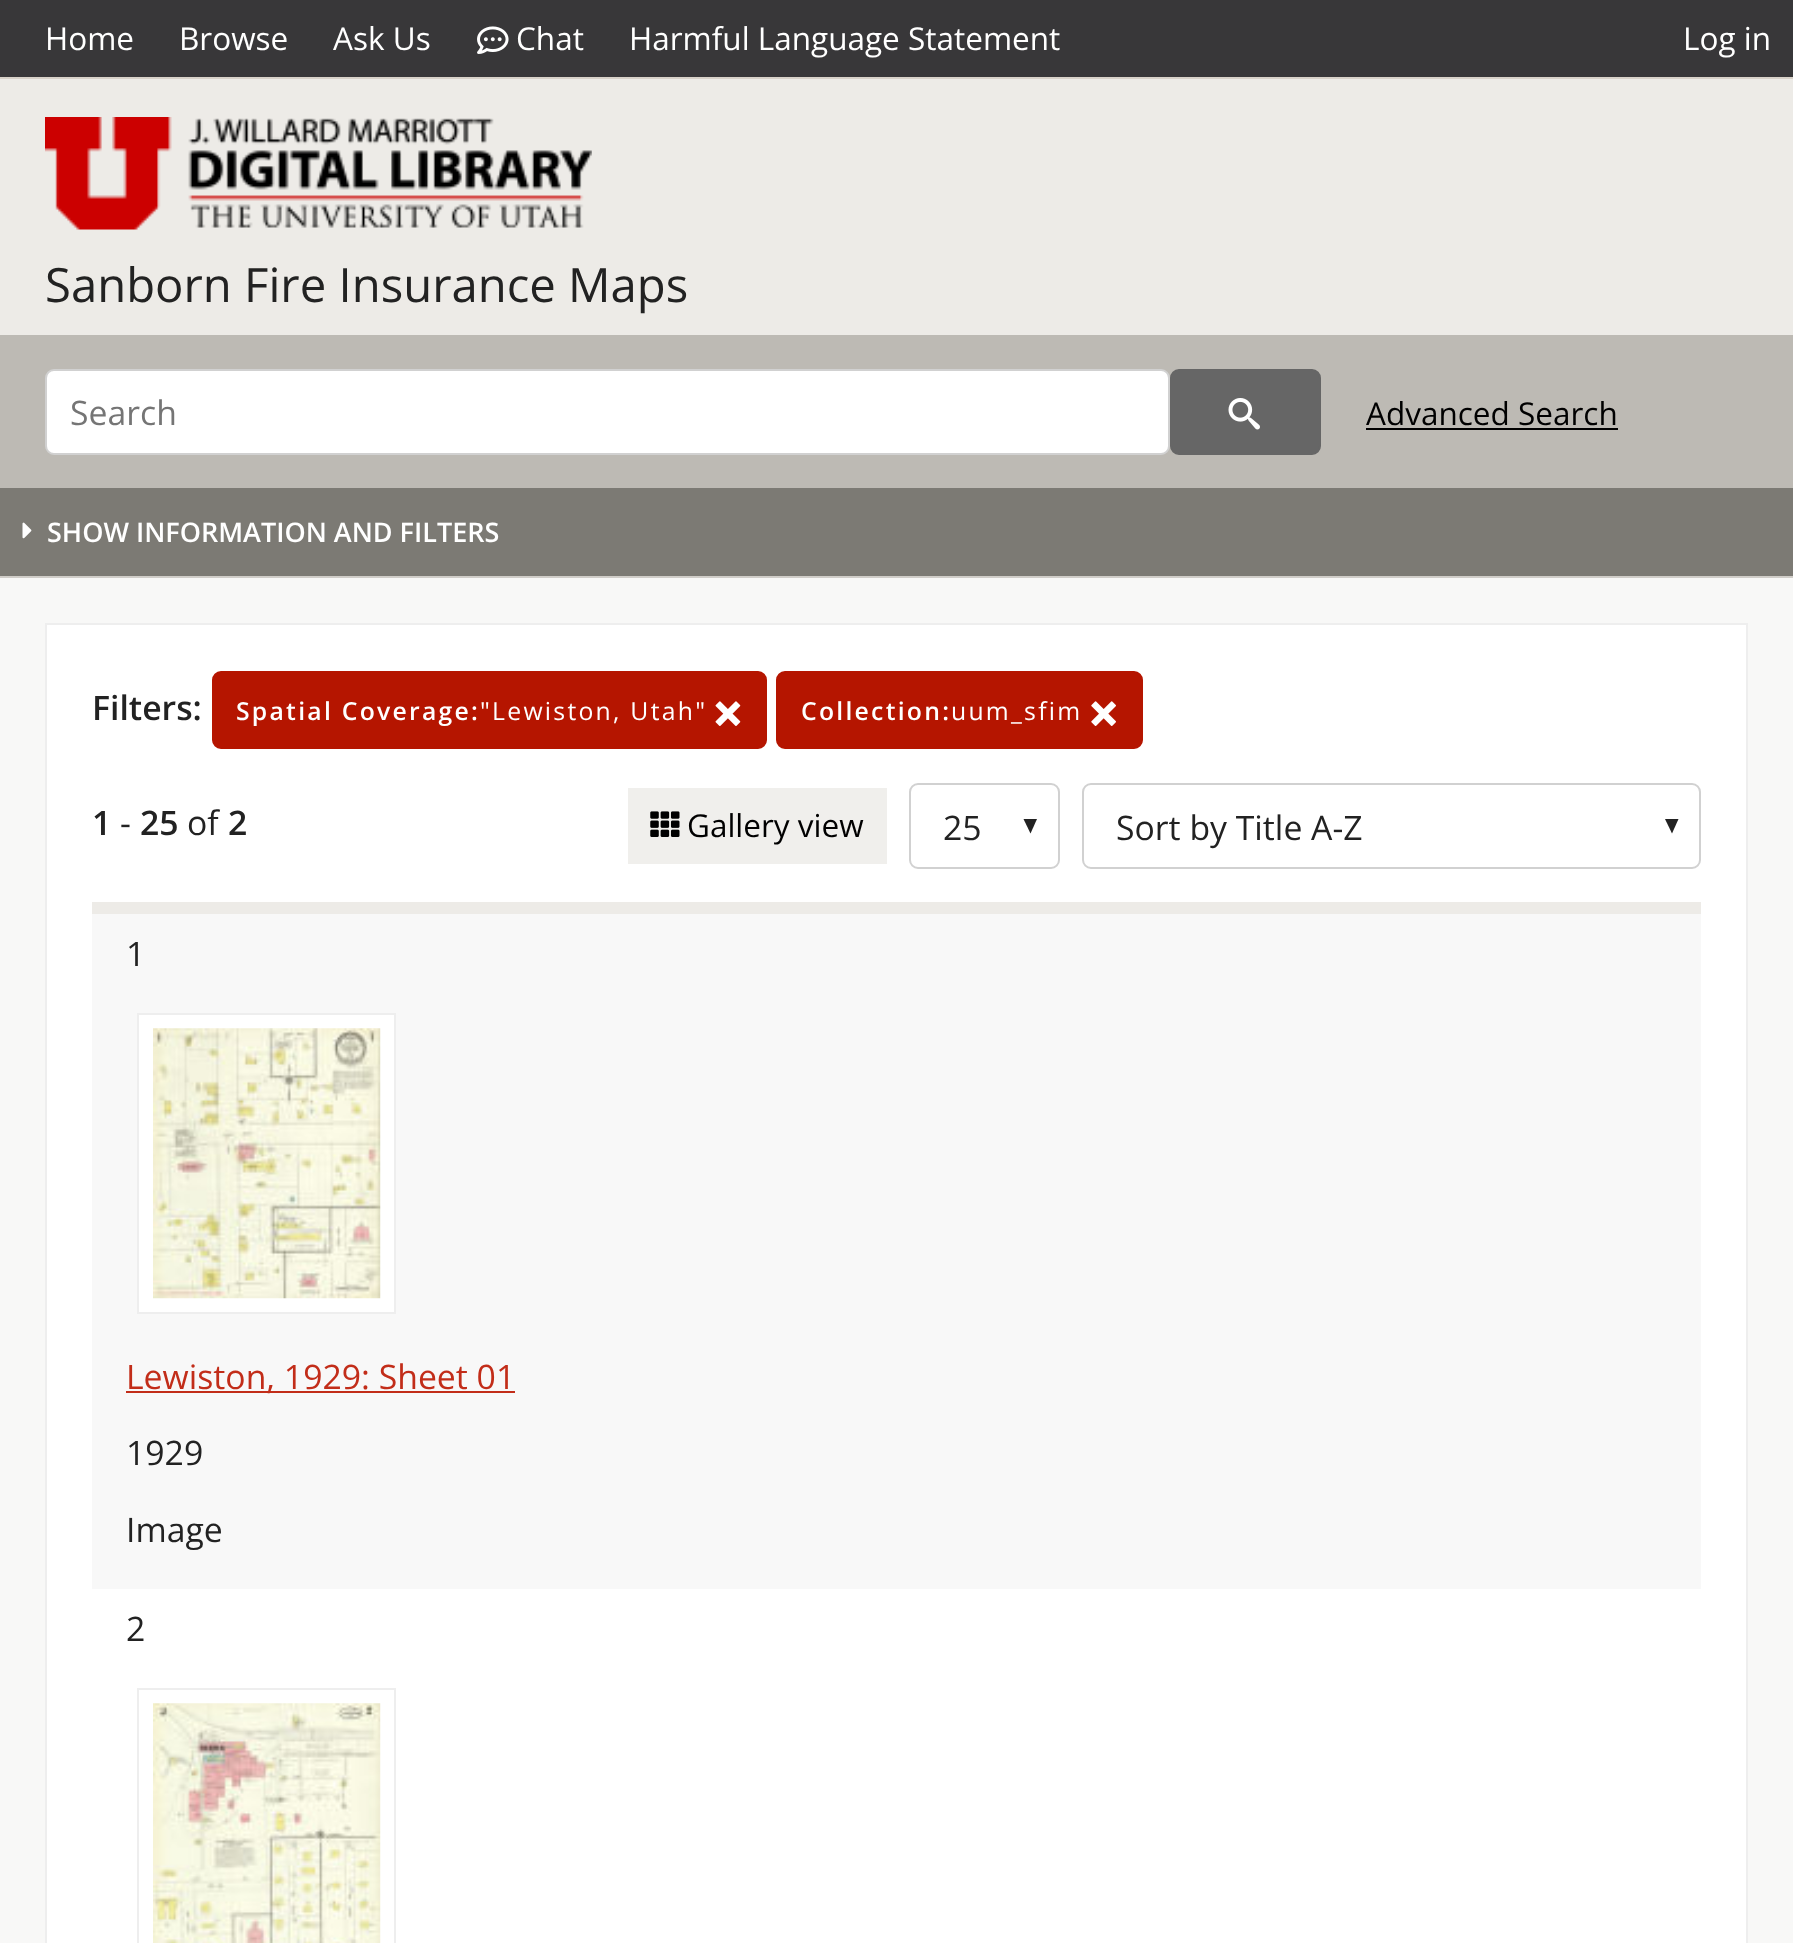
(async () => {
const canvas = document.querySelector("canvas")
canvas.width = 1793
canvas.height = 1943
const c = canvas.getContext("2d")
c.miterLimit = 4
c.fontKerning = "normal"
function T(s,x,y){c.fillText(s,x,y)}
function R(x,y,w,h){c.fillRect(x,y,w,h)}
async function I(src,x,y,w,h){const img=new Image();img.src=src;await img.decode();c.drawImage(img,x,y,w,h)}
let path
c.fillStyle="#f8f8f7"
R(0,0,1793,1943)
c.fillStyle="#383739"
R(0,0,1793,77)
c.font="31.5px Open Sans"
c.fillStyle="#fff"
T("Home",45,50)
T("Browse",179,50)
T("Ask Us",333,50)
await I("1.png",477,26,32,28)
T("Chat",516,50)
T("Harmful Language Statement",629,50)
T("Log in",1683,50)
c.fillStyle="#edebe7"
R(0,79,1793,256)
c.fillStyle="#d8d2c9"
R(0,77,1793,2)
await I("2.png",45,117,547,113)
c.font="47.25px Open Sans"
c.fillStyle="#222"
T("Sanborn Fire Insurance Maps",45,302)
c.fillStyle="#bdbab4"
R(0,335,1793,153)
c.fillStyle="#fff"
c.beginPath()
c.roundRect(46,370,1123,84,8)
c.fill()
c.strokeStyle="#d1d1d1"
c.lineWidth=2
c.stroke()
c.font="33.75px Open Sans"
c.fillStyle="#757575"
T("Search",70,425)
c.fillStyle="#666"
c.beginPath()
c.roundRect(1171,370,149,84,8)
c.fill()
c.strokeStyle="#666"
c.stroke()
await I("3.png",1228,398,32,32)
c.font="31.5px Open Sans"
c.fillStyle="#000"
T("Advanced Search",1366,425)
R(1366,428,252,2)
c.fillStyle="#7c7a74"
R(0,488,1793,88)
c.fillStyle="#d0cdc8"
R(0,576,1793,2)
await I("4.png",22,522,10,17)
c.font="600 27px Open Sans"
c.fillStyle="#fff"
T("SHOW INFORMATION AND FILTERS",47,542)
c.beginPath()
c.rect(46,624,1701,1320)
c.fill()
c.strokeStyle="#eee"
c.stroke()
c.font="600 33.75px Open Sans"
c.fillStyle="#222"
T("Filters:",92,720)
c.fillStyle="#b51500"
c.beginPath()
c.roundRect(213,672,553,76,8)
c.fill()
c.strokeStyle="#b51500"
c.stroke()
c.letterSpacing="2.25px"
c.font="600 24.75px Open Sans"
c.fillStyle="#fff"
T("Spatial Coverage:",236,720)
c.font="24.75px Open Sans"
T("\"Lewiston, Utah\"",480,720)
await I("5.png",715,701,26,25)
c.fillStyle="#b51500"
c.beginPath()
c.roundRect(777,672,365,76,8)
c.fill()
c.stroke()
c.font="600 24.75px Open Sans"
c.fillStyle="#fff"
T("Collection:",801,720)
c.font="24.75px Open Sans"
T("uum_sfim",951,720)
await I("6.png",1091,701,25,25)
c.fillStyle="#edebe7"
R(92,902,1609,12)
c.letterSpacing="0px"
c.font="600 33.75px Open Sans"
c.fillStyle="#222"
T("1",92,835)
c.font="33.75px Open Sans"
T("-",120,835)
c.font="600 33.75px Open Sans"
T("25",140,835)
c.font="33.75px Open Sans"
T("of",187,835)
c.font="600 33.75px Open Sans"
T("2",228,835)
c.fillStyle="#f0efec"
R(628,788,259,76)
await I("7.png",650,811,30,26)
c.font="31.5px Open Sans"
c.fillStyle="#000"
T("Gallery view",687,837)
c.fillStyle="#222"
path = new Path2D("M1023.5 819l7 14.5l6.5-14.5")
c.fill(path)
c.beginPath()
c.roundRect(910,784,149,84,8)
c.strokeStyle="#d1d1d1"
c.stroke()
c.font="33.75px Open Sans"
T("25",943,840)
path = new Path2D("M1665 819l7 14.5l6.5-14.5")
c.fill(path)
c.beginPath()
c.roundRect(1083,784,617,84,8)
c.stroke()
T("Sort by Title A-Z",1116,840)
c.fillStyle="#f8f8f8"
R(92,914,1609,675)
c.fillStyle="#222"
T("1",126,966)
c.fillStyle="#fff"
c.beginPath()
c.rect(138,1014,257,299)
c.fill()
c.strokeStyle="#eee"
c.stroke()
await I("8.png",153,1028,228,271)
c.fillStyle="#c22d19"
R(126,1391,389,2)
T("Lewiston, 1929: Sheet 01",126,1389)
c.fillStyle="#222"
T("1929",126,1465)
T("Image",126,1542)
T("2",126,1641)
c.strokeRect(138,1689,257,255)
await I("9.png",153,1703,228,240)
})()
